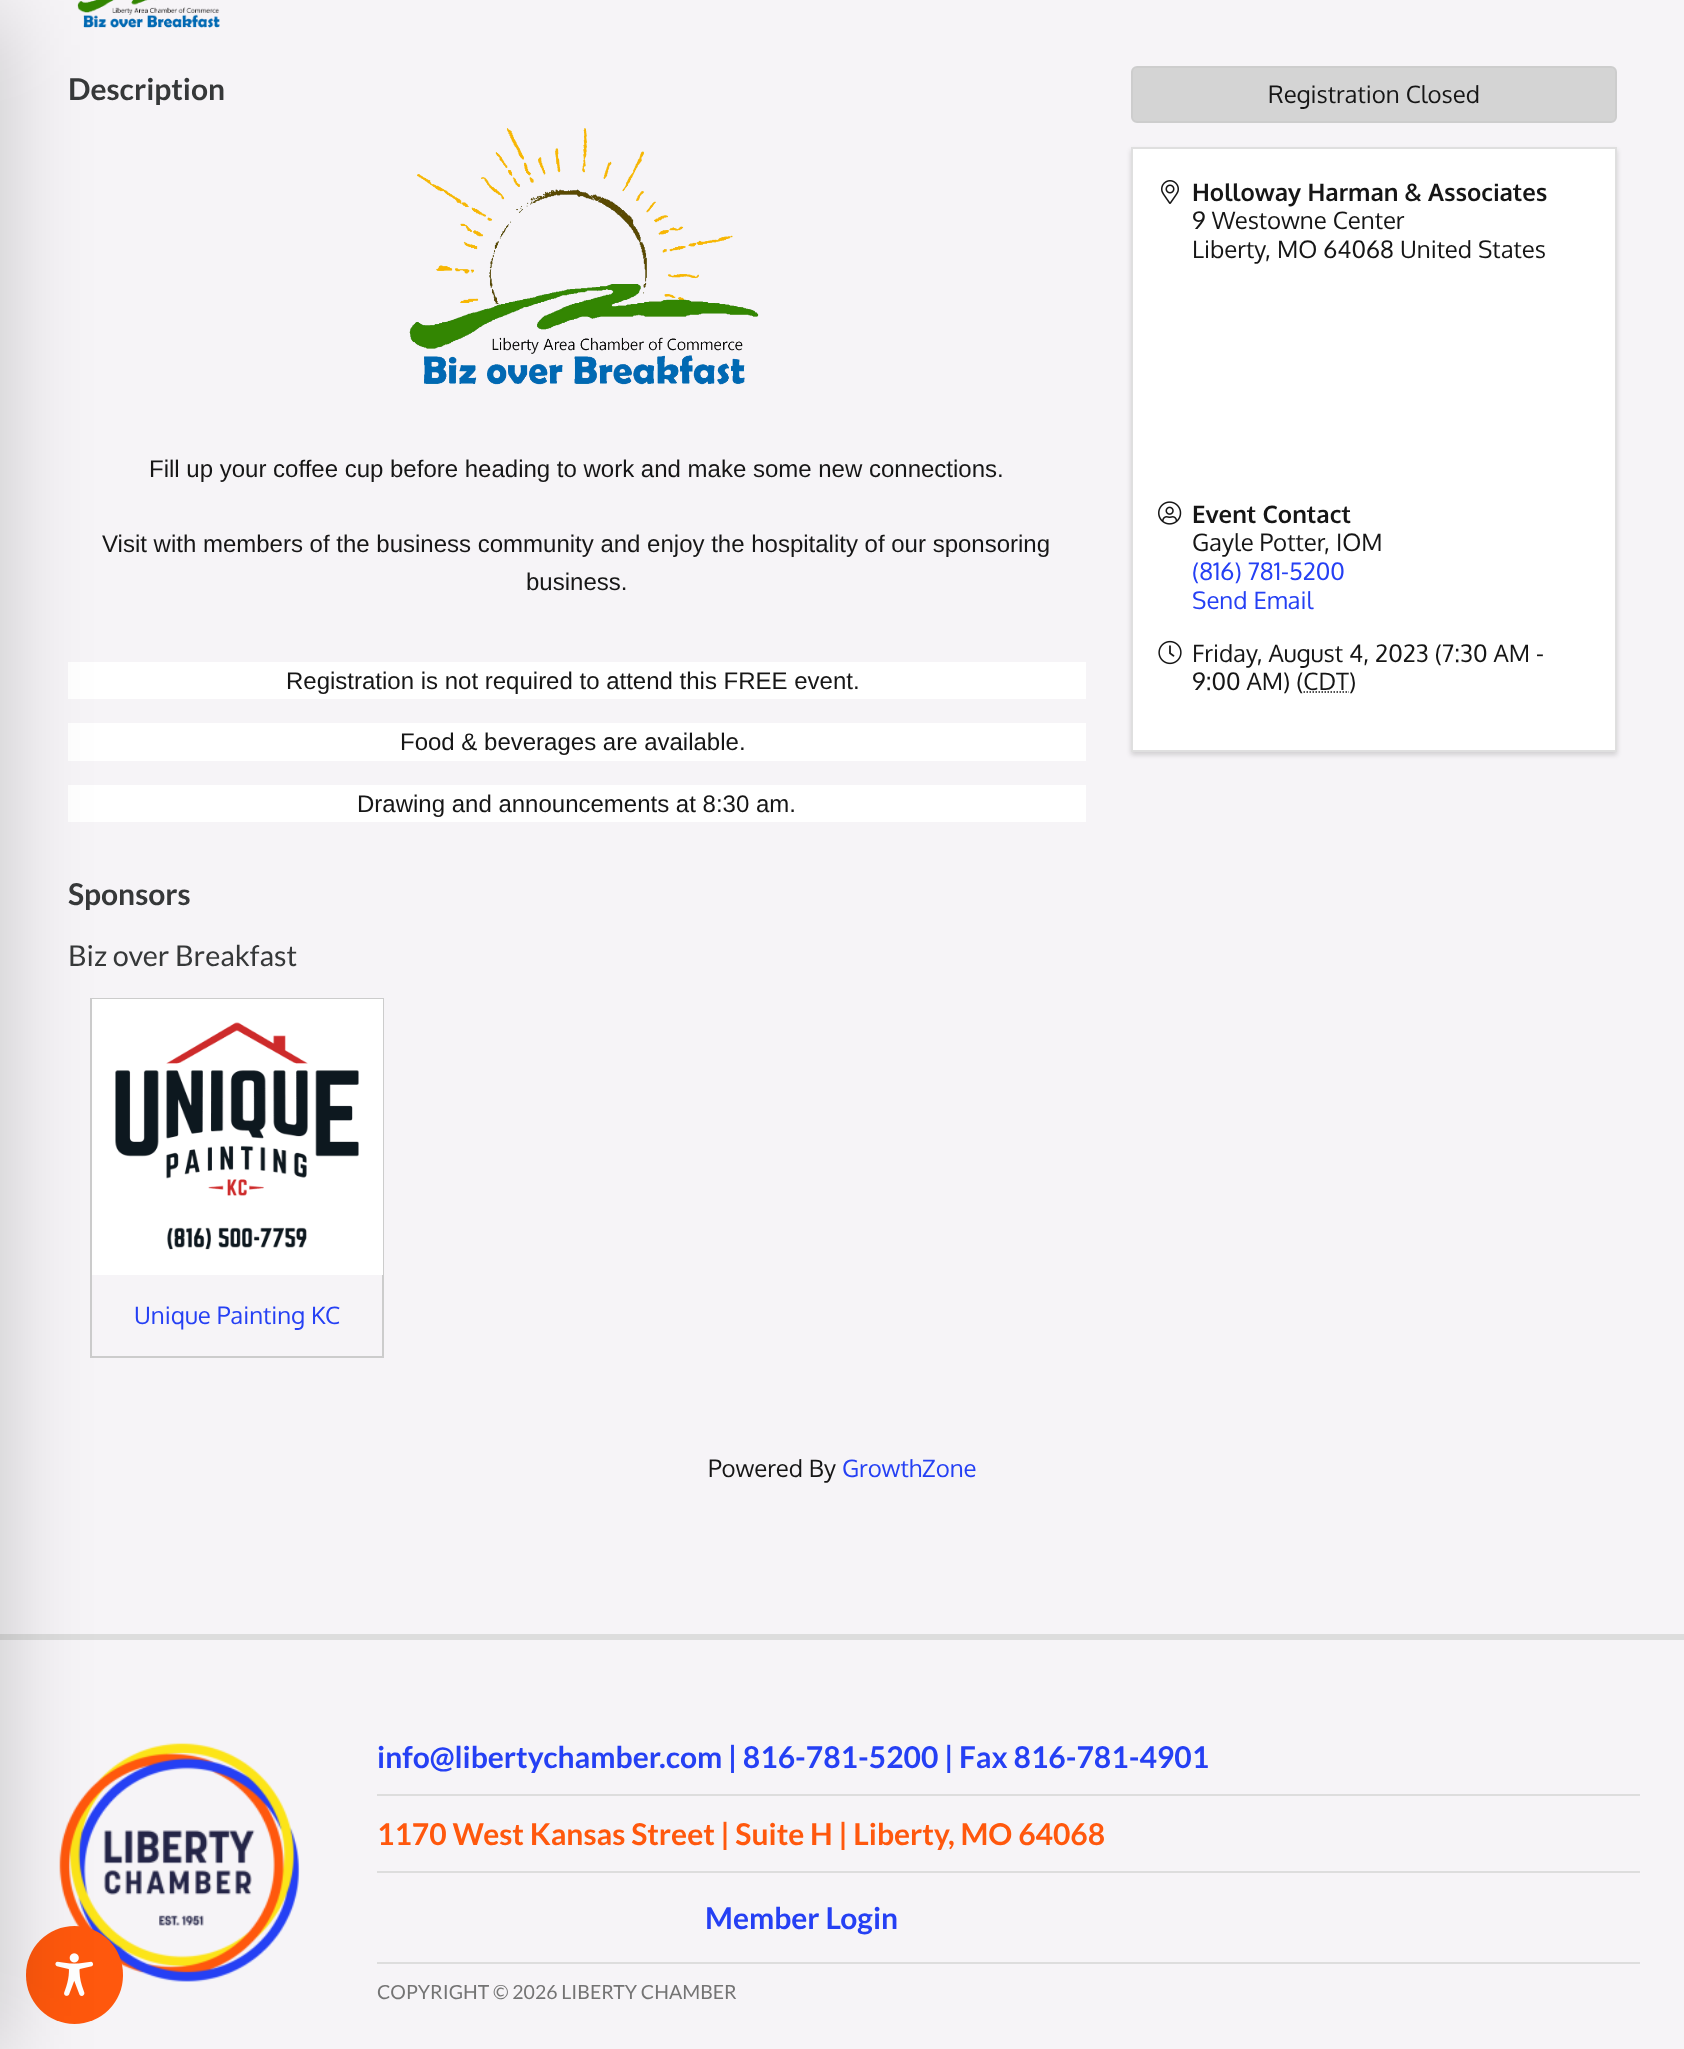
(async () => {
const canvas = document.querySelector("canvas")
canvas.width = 1684
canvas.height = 2049
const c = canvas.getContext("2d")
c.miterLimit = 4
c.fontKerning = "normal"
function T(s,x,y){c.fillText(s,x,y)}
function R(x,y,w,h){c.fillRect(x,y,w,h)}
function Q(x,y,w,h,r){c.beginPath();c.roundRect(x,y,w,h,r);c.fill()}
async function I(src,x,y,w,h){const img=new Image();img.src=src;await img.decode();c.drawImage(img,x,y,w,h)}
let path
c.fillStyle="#f6f4f7"
R(0,0,1684,2049)
await I("8.png",59,1742,241,240)
c.fillStyle="#ff580d"
Q(26,1926,97,98,48.5)
await I("1.png",55,1953,39,43)
await I("2.png",77,0,143,28)
c.fillStyle="#fff"
R(68,662,1018,37)
R(68,723,1018,38)
R(68,785,1018,37)
c.strokeStyle="#ccc"
c.lineWidth=2
c.strokeRect(91,999,292,358)
R(92,999,291,276)
await I("4.png",115,1022,244,228)
c.fillStyle="#ddd"
R(0,1634,1684,6)
c.fillStyle="#00000033"
c.filter="blur(45px)"
c.beginPath()
c.rect(-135,15,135,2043)
c.fill()
c.filter="none"
c.font="bold 30px Lato"
c.fillStyle="#363839"
T("Description",68,100)
await I("3.png",409,128,350,257)
c.font="24px Liberation Sans"
c.fillStyle="#161616"
T("Fill up your coffee cup before heading to work and make some new connections.",149,477)
T("Visit with members of the business community and enjoy the hospitality of our sponsoring",102,552)
T("business.",526,590)
T("Registration is not required to attend this FREE event.",286,689)
T("Food & beverages are available.",400,750)
T("Drawing and announcements at 8:30 am.",357,812)
c.font="bold 30px Lato"
c.fillStyle="#363839"
T("Sponsors",68,905)
c.font="28.75px Lato"
T("Biz over Breakfast",68,966)
c.font="24px Oxygen"
c.fillStyle="#2540f4"
T("Unique Painting KC",134,1324)
c.fillStyle="#d4d4d4"
c.beginPath()
c.roundRect(1132,67,484,55,5)
c.fill()
c.strokeStyle="#cdcdcd"
c.stroke()
c.fillStyle="#161616"
T("Registration Closed",1268,103)
c.fillStyle="#00000026"
c.filter="blur(2.5px)"
c.beginPath()
c.rect(1131,150,486,605)
c.fill()
c.filter="none"
c.fillStyle="#fff"
c.beginPath()
c.rect(1132,148,484,603)
c.fill()
c.strokeStyle="#dfdfdf"
c.stroke()
await I("5.png",1161,180,18,24)
c.font="bold 24px Oxygen"
c.fillStyle="#161616"
T("Holloway Harman & Associates",1192,201)
c.font="24px Oxygen"
T("9 Westowne Center",1192,229)
T("Liberty",1192,258)
T(", MO 64068 United States",1265,258)
await I("6.png",1158,501,24,24)
c.font="bold 24px Oxygen"
T("Event Contact",1192,523)
c.font="24px Oxygen"
T("Gayle Potter, IOM",1192,551)
c.fillStyle="#2540f4"
T("(816) 781-5200",1192,580)
T("Send Email",1192,609)
await I("7.png",1158,640,24,25)
c.fillStyle="#161616"
T("Friday, August 4, 2023 (7:30 AM -",1192,662)
T("9:00 AM) (CDT)",1192,690)
path = new Path2D("M1303.5 692h45.5")
c.strokeStyle="#161616"
c.lineWidth=1.5
c.setLineDash([1.5,1.5])
c.stroke(path)
T("Powered By",708,1477)
c.fillStyle="#2540f4"
T("GrowthZone",842,1477)
c.font="bold 30px Lato"
T("info@libertychamber.com | 816-781-5200 | Fax 816-781-4901",377,1768)
c.fillStyle="#ddd"
R(377,1794,1263,2)
c.fillStyle="#ff580d"
T("1170 West Kansas Street | Suite H | Liberty, MO 64068",377,1845)
c.fillStyle="#ddd"
R(377,1871,1263,2)
c.fillStyle="#2540f4"
T("Member Login",705,1929)
c.fillStyle="#ddd"
R(377,1962,1263,2)
c.font="19.5px Lato"
c.fillStyle="#747474"
T("COPYRIGHT © 2026 LIBERTY CHAMBER",377,1999)
})()
